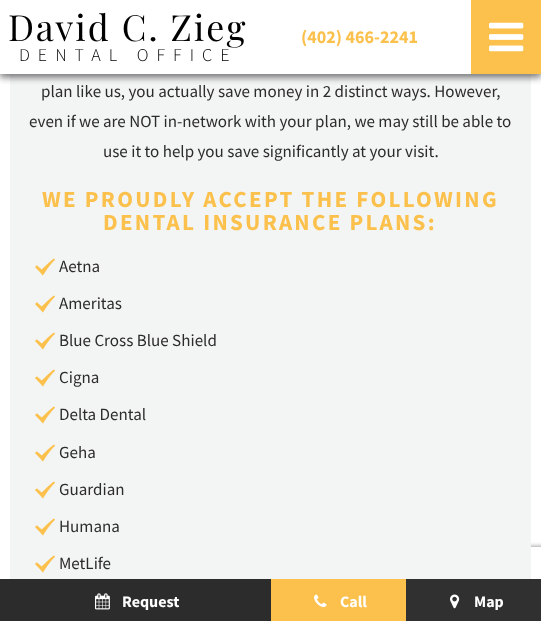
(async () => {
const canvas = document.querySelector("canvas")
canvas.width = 541
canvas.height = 621
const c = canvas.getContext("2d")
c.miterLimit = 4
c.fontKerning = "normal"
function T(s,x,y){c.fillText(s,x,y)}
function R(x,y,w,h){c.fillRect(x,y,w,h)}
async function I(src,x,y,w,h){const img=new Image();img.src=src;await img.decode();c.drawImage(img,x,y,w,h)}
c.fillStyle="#fff"
R(0,0,541,621)
c.save()
c.beginPath()
c.rect(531,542,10,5)
c.clip()
c.fillStyle="#808080"
c.filter="blur(2.5px)"
c.beginPath()
c.roundRect(471,547,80,60,2)
c.fill()
c.filter="none"
c.restore()
c.fillStyle="#f3f4f4"
R(10,74,521,505)
c.fillStyle="#18171859"
c.filter="blur(3.5px)"
c.beginPath()
c.rect(0,3,541,74)
c.fill()
c.filter="none"
c.fillStyle="#18171959"
c.filter="blur(3.5px)"
c.beginPath()
c.rect(0,3,541,74)
c.fill()
c.filter="none"
c.fillStyle="#fff"
R(0,0,471,74)
c.letterSpacing="2px"
c.font="36px Playfair Display"
c.fillStyle="#000"
T("David C. Zieg",8,41)
c.letterSpacing="8px"
c.font="300 18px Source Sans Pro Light"
T("DENTAL OFFICE",19,61)
c.letterSpacing="0px"
c.font="bold 18px Source Sans Pro"
c.fillStyle="#fbc14c"
T("(402) 466-2241",301,43)
R(471,0,70,74)
await I("1.png",489,22,35,30)
c.font="17px Source Sans Pro"
c.fillStyle="#2c2c2c"
T("plan like us, you actually save money in 2 distinct ways. However,",41,97)
T("even if we are NOT in-network with your plan, we may still be able to",29,127)
T("use it to help you save significantly at your visit.",103,157)
c.letterSpacing="2.3px"
c.font="bold 23px Source Sans Pro"
c.fillStyle="#fbc14c"
T("WE PROUDLY ACCEPT THE FOLLOWING",42,207)
T("DENTAL INSURANCE PLANS:",103,230)
await I("2.png",35,258,20,18)
c.letterSpacing="0px"
c.font="17px Source Sans Pro"
c.fillStyle="#2c2c2c"
T("Aetna",59,272)
await I("2.png",35,295,20,18)
T("Ameritas",59,309)
await I("2.png",35,332,20,18)
T("Blue Cross Blue Shield",59,346)
await I("2.png",35,369,20,18)
T("Cigna",59,383)
await I("2.png",35,406,20,18)
T("Delta Dental",59,420)
await I("2.png",35,444,20,18)
T("Geha",59,458)
await I("2.png",35,481,20,18)
T("Guardian",59,495)
await I("2.png",35,518,20,18)
T("Humana",59,532)
await I("2.png",35,555,20,18)
T("MetLife",59,569)
R(0,579,271,42)
await I("3.png",95,593,15,17)
c.font="bold 16px Source Sans Pro"
c.fillStyle="#fff"
T("Request",122,607)
c.fillStyle="#fbc14c"
R(271,579,135,42)
await I("4.png",314,594,13,14)
c.fillStyle="#fff"
T("Call",340,607)
c.fillStyle="#2f302f"
R(406,579,135,42)
await I("5.png",450,594,10,15)
c.fillStyle="#fff"
T("Map",474,607)
})()
